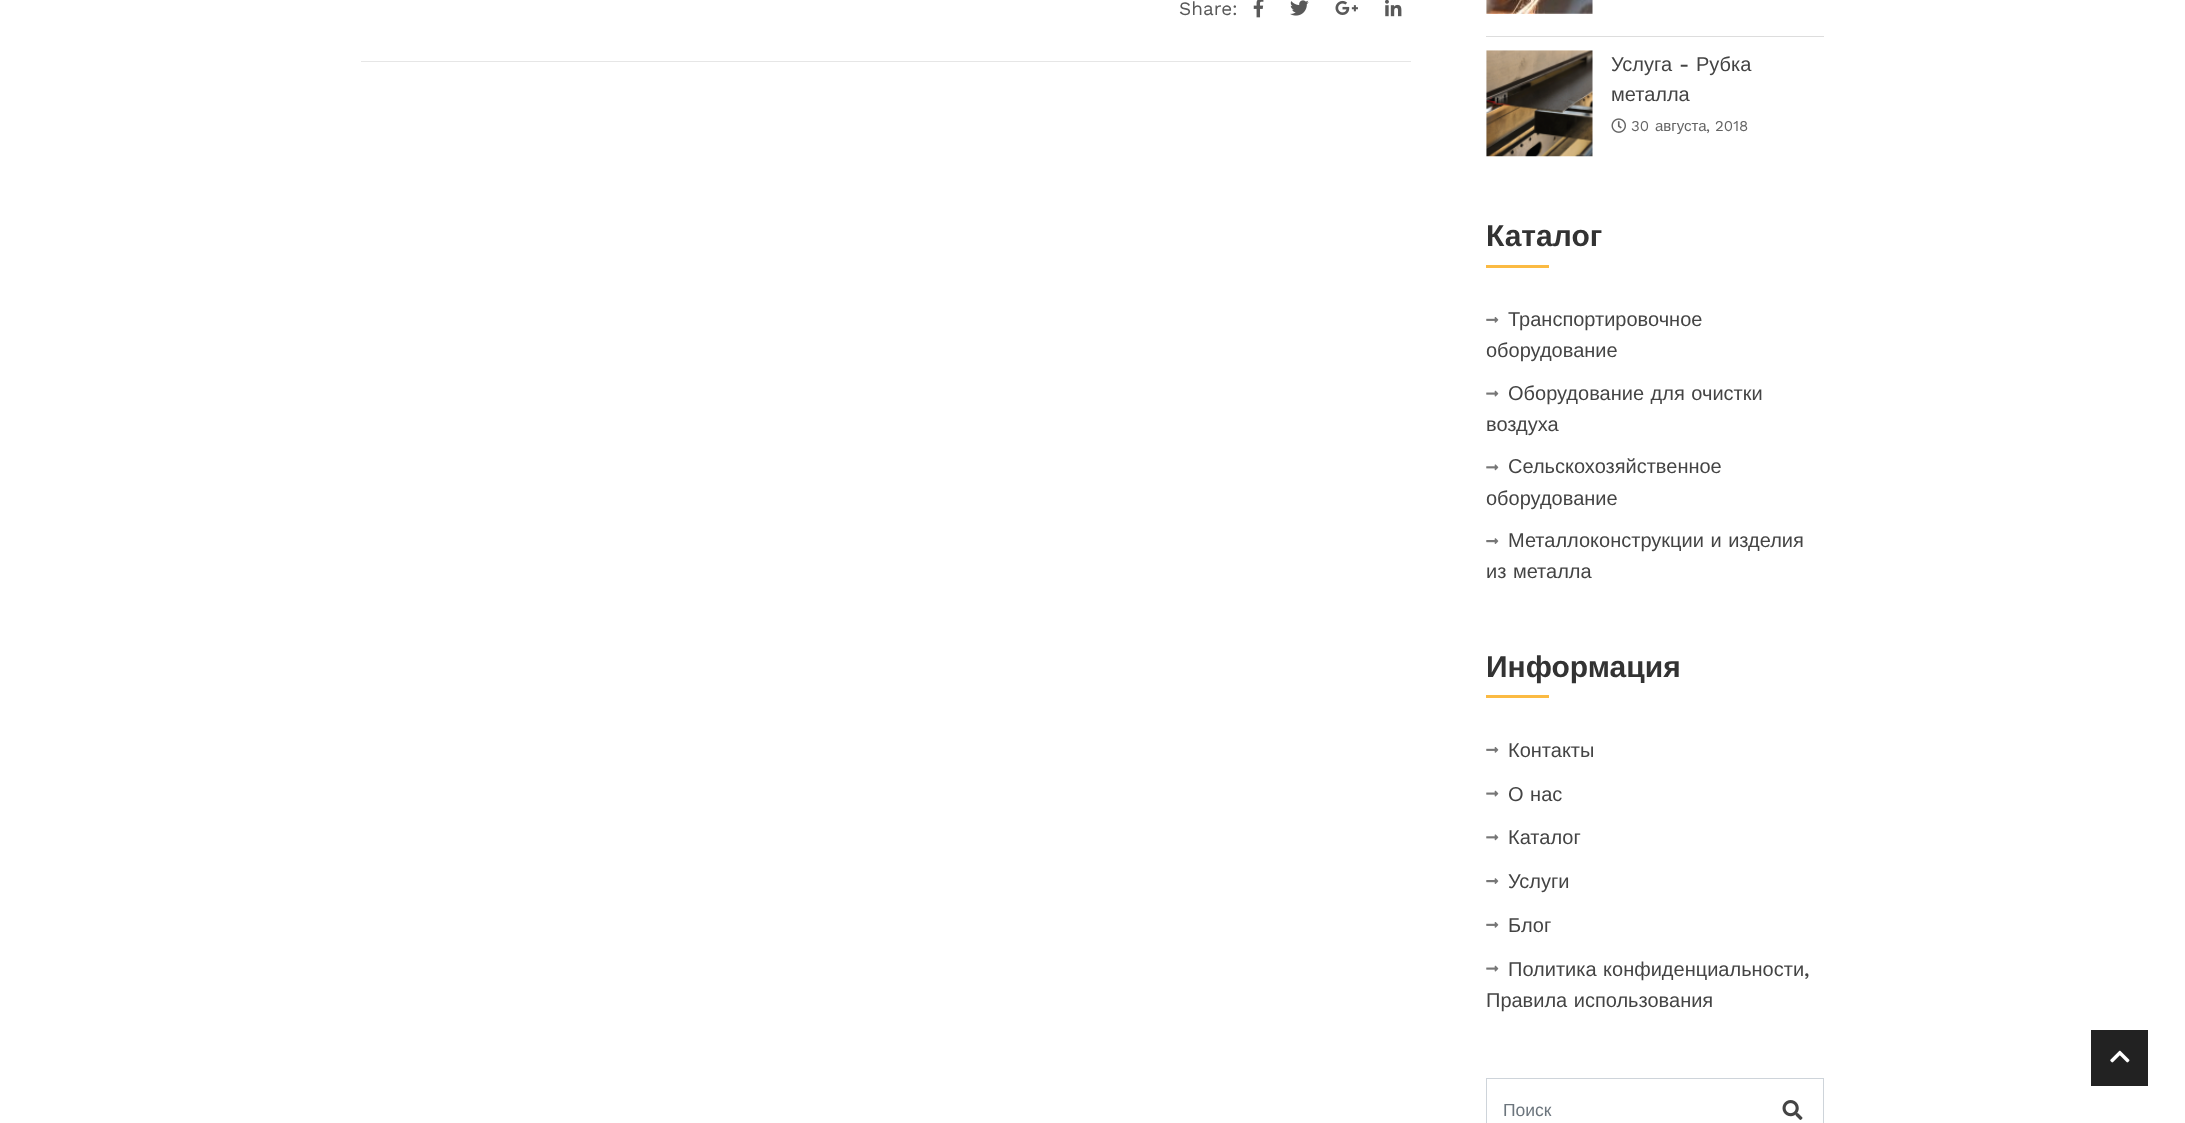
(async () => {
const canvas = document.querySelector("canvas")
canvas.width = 2185
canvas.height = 1123
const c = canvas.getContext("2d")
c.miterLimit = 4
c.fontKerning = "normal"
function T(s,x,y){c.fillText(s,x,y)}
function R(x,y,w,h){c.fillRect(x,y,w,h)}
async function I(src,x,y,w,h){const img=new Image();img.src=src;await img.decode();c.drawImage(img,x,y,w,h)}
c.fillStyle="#fff"
R(0,0,2185,1123)
c.fillStyle="#e6e6e6"
R(361,61,1050,1)
c.font="19px Work Sans"
c.fillStyle="#595959"
T("Share:",1179,15)
await I("1.png",1253,0,11,18)
await I("2.png",1290,0,19,16)
await I("3.png",1335,0,23,15)
await I("4.png",1385,0,17,17)
c.fillStyle="#ddd"
R(1486,36,338,1)
await I("5.png",1486,0,107,14)
await I("6.png",1486,50,107,107)
c.font="20px Liberation Sans"
c.fillStyle="#444"
T("Услуга",1611,71)
c.font="500 20px Work Sans"
T("-",1679,71)
c.font="20px Liberation Sans"
T("Рубка",1696,71)
T("металла",1611,101)
await I("7.png",1611,118,15,15)
c.font="15px Work Sans"
c.fillStyle="#646464"
T("30",1631,131)
c.font="15px Liberation Sans"
T("августа",1655,131)
c.font="15px Work Sans"
T(", 2018",1706,131)
c.font="bold 30px Liberation Sans"
c.fillStyle="#333"
T("Каталог",1486,246)
c.fillStyle="#fbba42"
R(1486,265,63,3)
await I("8.png",1486,317,13,6)
c.font="20px Liberation Sans"
c.fillStyle="#444"
T("Транспортировочное",1508,326)
T("оборудование",1486,357)
await I("9.png",1486,390,13,7)
c.wordSpacing="1px"
T("Оборудование для очистки",1508,400)
c.wordSpacing="0px"
T("воздуха",1486,431)
await I("10.png",1486,464,13,7)
T("Сельскохозяйственное",1508,473)
T("оборудование",1486,505)
await I("11.png",1486,538,13,6)
c.wordSpacing="1px"
T("Металлоконструкции и изделия",1508,547)
T("из металла",1486,578)
c.wordSpacing="0px"
c.font="bold 30px Liberation Sans"
c.fillStyle="#333"
T("Информация",1486,677)
c.fillStyle="#fbba42"
R(1486,695,63,3)
await I("8.png",1486,747,13,6)
c.font="20px Liberation Sans"
c.fillStyle="#444"
T("Контакты",1508,757)
await I("9.png",1486,790,13,7)
c.wordSpacing="1px"
T("О нас",1508,801)
await I("10.png",1486,834,13,7)
c.wordSpacing="0px"
T("Каталог",1508,844)
await I("11.png",1486,878,13,6)
T("Услуги",1508,888)
await I("8.png",1486,922,13,6)
T("Блог",1508,932)
await I("9.png",1486,965,13,7)
c.wordSpacing="1px"
T("Политика конфиденциальности",1508,976)
c.wordSpacing="0px"
c.font="500 20px Work Sans"
T(",",1804,976)
c.wordSpacing="1px"
c.font="20px Liberation Sans"
T("Правила использования",1486,1007)
c.strokeStyle="#ced4da"
c.strokeRect(1486.5,1078.5,337,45)
c.wordSpacing="0px"
c.font="17.5px Liberation Sans"
c.fillStyle="#6c757d"
T("Поиск",1503,1116)
await I("12.png",1782,1100,21,20)
c.fillStyle="#222"
R(2091,1030,57,56)
await I("13.png",2110,1050,20,13)
})()
